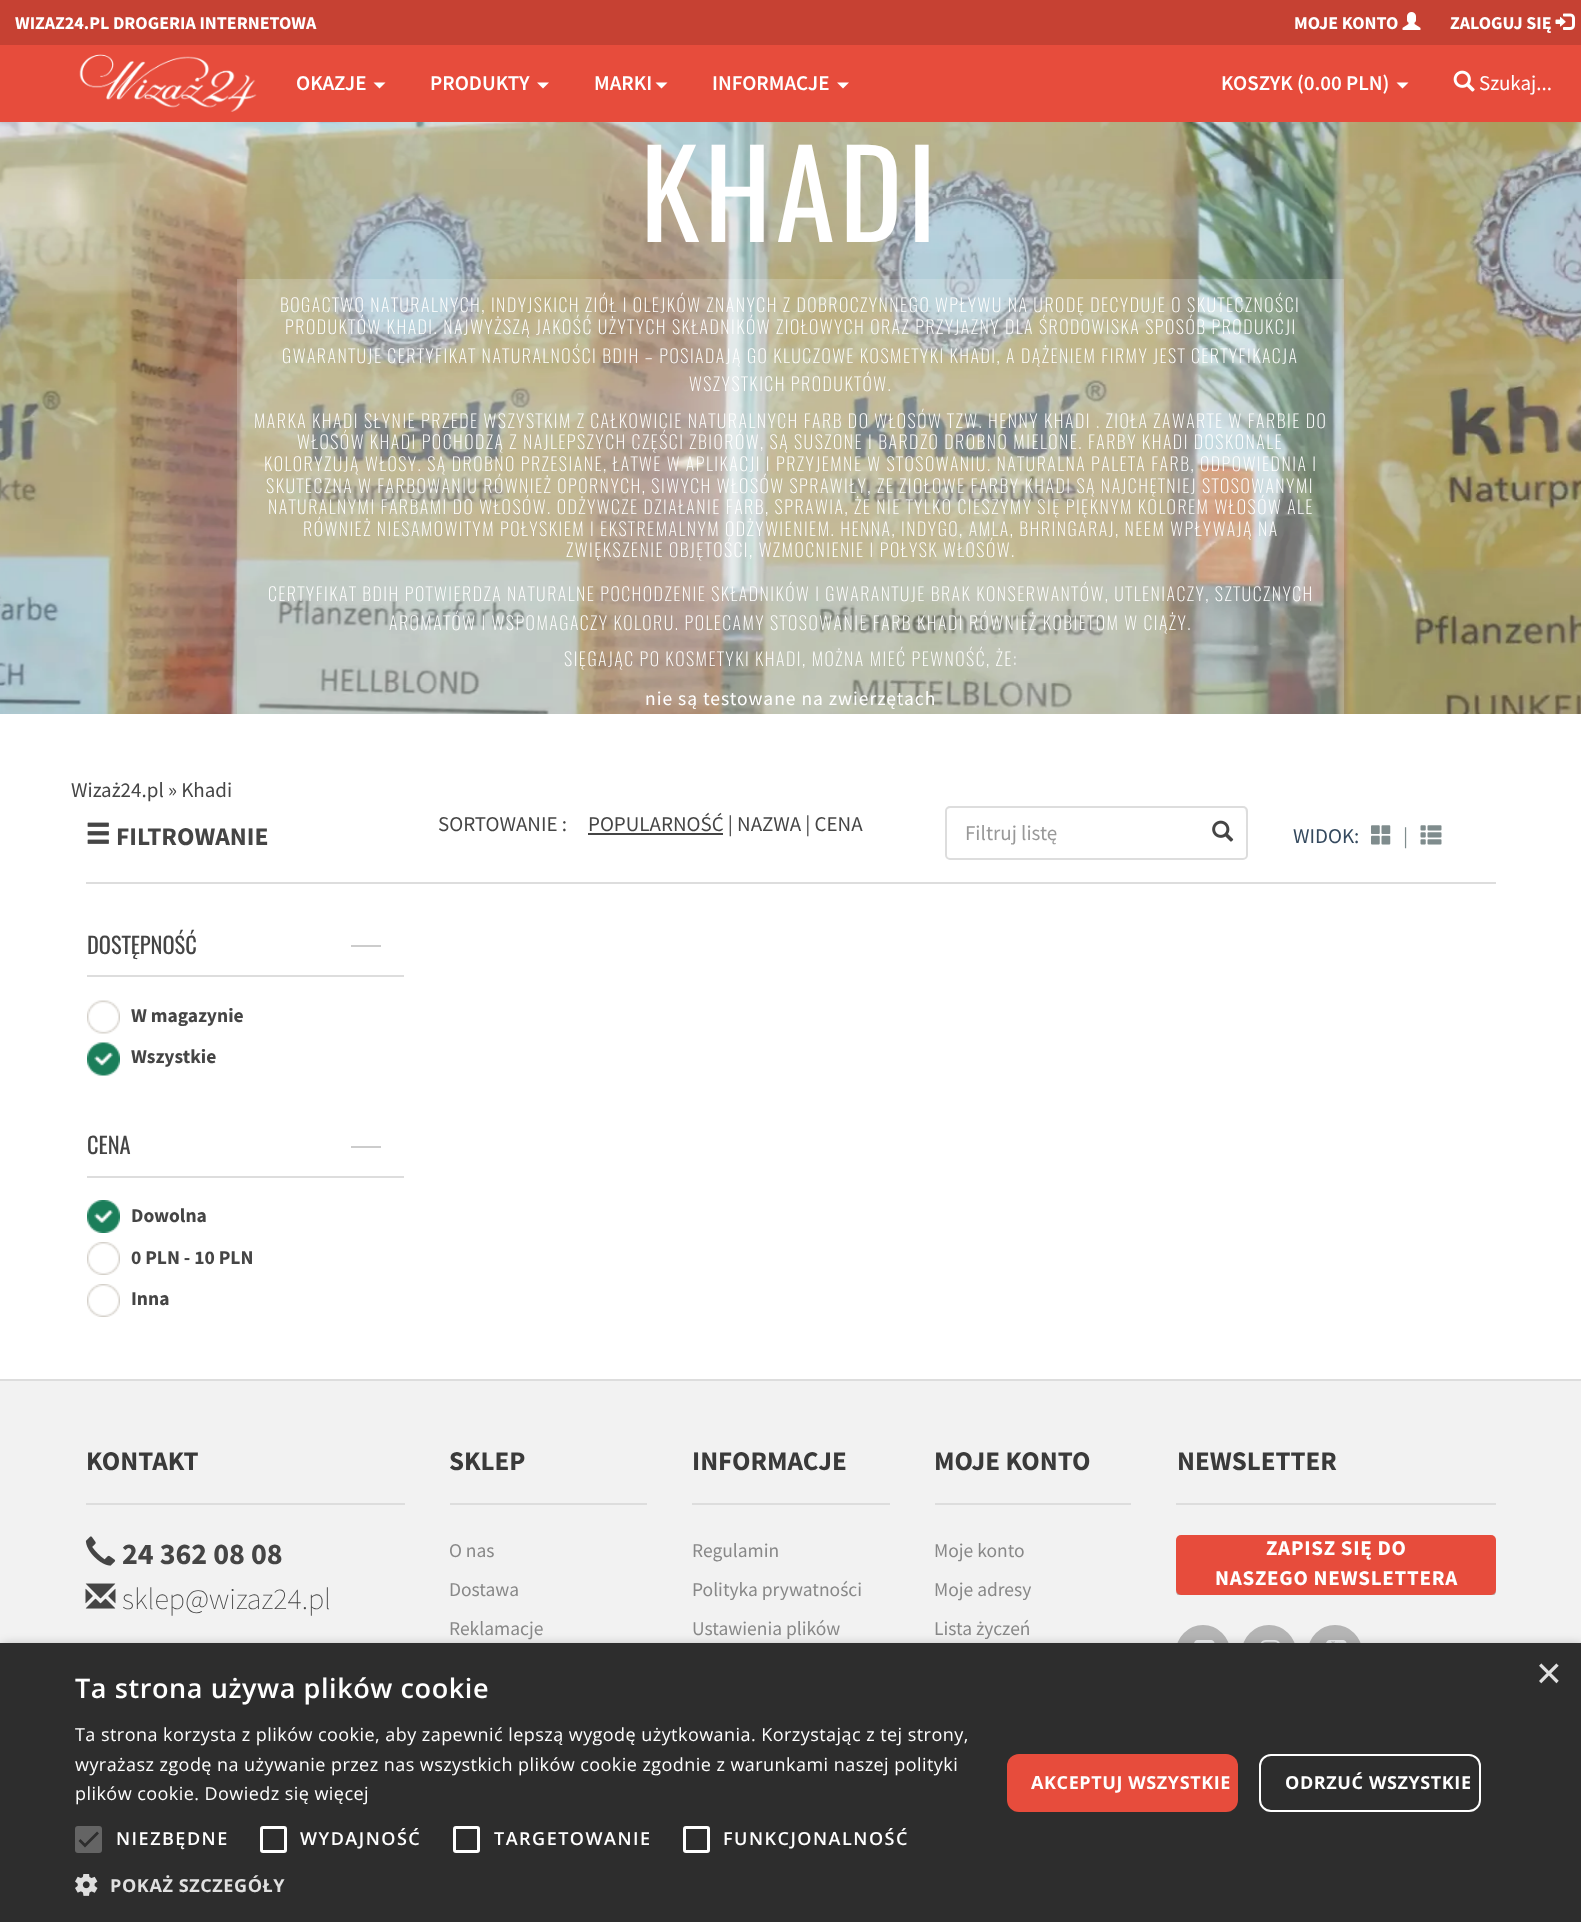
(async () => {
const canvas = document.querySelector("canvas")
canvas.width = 1581
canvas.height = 1922
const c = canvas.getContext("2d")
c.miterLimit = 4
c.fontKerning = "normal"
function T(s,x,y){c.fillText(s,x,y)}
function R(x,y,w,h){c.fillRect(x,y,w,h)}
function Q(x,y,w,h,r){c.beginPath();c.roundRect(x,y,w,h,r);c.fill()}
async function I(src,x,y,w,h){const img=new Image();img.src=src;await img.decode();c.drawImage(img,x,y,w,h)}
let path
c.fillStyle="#fff"
R(0,0,1581,1922)
c.fillStyle="#e74c3c"
R(0,45,1581,77)
c.fillStyle="#c64133"
R(0,0,1581,45)
c.font="bold 18px Source Sans Pro"
c.fillStyle="#fff"
T("WIZAZ24.PL DROGERIA INTERNETOWA",15,29)
T("MOJE KONTO",1294,29)
await I("1.png",1402,12,19,18)
T("ZALOGUJ SIĘ",1450,29)
await I("2.png",1555,13,20,17)
await I("3.png",79,54,178,58)
c.font="600 21px Source Sans Pro"
T("OKAZJE",296,90)
path = new Path2D("M373.5 82.5h12l-6 6z")
c.fill(path)
T("PRODUKTY",430,90)
path = new Path2D("M537 82.5h12l-6 6z")
c.fill(path)
T("MARKI",594,90)
path = new Path2D("M655.5 82.5h12l-6 6z")
c.fill(path)
T("INFORMACJE",712,90)
path = new Path2D("M837 82.5h12l-6 6z")
c.fill(path)
T("KOSZYK (0.00 PLN)",1221,90)
path = new Path2D("M1396.5 82.5h12l-6 6z")
c.fill(path)
await I("4.png",1453,70,22,22)
c.font="21px Source Sans Pro"
T("Szukaj...",1479,90)
await I("5.png",0,122,1581,592)
c.letterSpacing="4.5px"
c.font="120px Oswald"
T("KHADI",640,242)
c.fillStyle="#ffffff33"
R(237,279,1107,435)
c.letterSpacing="1.5px"
c.font="200 18px Oswald"
c.fillStyle="#fff"
T("BOGACTWO NATURALNYCH, INDYJSKICH ZIÓŁ I OLEJKÓW ZNANYCH Z DOBROCZYNNEGO WPŁYWU NA URODĘ DECYDUJE O SKUTECZNOŚCI",280,312)
T("PRODUKTÓW KHADI. NAJWYŻSZĄ JAKOŚĆ UŻYTYCH SKŁADNIKÓW ZIOŁOWYCH ORAZ PRZYJAZNY DLA ŚRODOWISKA SPOSÓB PRODUKCJI",285,334)
T("GWARANTUJE CERTYFIKAT NATURALNOŚCI BDIH – POSIADAJĄ GO KLUCZOWE KOSMETYKI KHADI, A DĄŻENIEM FIRMY JEST CERTYFIKACJA",282,363)
T("WSZYSTKICH PRODUKTÓW.",689,391)
T("MARKA KHADI SŁYNIE PRZEDE WSZYSTKIM Z CAŁKOWICIE NATURALNYCH FARB DO WŁOSÓW TZW. HENNY KHADI . ZIOŁA ZAWARTE W FARBIE DO",254,428)
T("WŁOSÓW KHADI POCHODZĄ Z NAJLEPSZYCH CZĘŚCI ZBIORÓW, SĄ SUSZONE I BARDZO DROBNO MIELONE. FARBY KHADI DOSKONALE",297,449)
T("KOLORYZUJĄ WŁOSY. SĄ DROBNO PRZESIANE, ŁATWE W APLIKACJI I PRZYJEMNE W STOSOWANIU. NATURALNA PALETA FARB, ODPOWIEDNIA I",264,471)
T("SKUTECZNA W FARBOWANIU RÓWNIEŻ OPORNYCH, SIWYCH WŁOSÓW SPRAWIŁY, ZE ZIOŁOWE FARBY KHADI SĄ NAJCHĘTNIEJ STOSOWANYMI",266,493)
T("NATURALNYMI FARBAMI DO WŁOSÓW. ODŻYWCZE DZIAŁANIE FARB, SPRAWIA, ŻE NIE TYLKO CIESZYMY SIĘ PIĘKNYM KOLOREM WŁOSÓW ALE",268,514)
T("RÓWNIEŻ NIESAMOWITYM POŁYSKIEM I EKSTREMALNYM ODŻYWIENIEM. HENNA, INDYGO, AMLA, BHRINGARAJ, NEEM WPŁYWAJĄ NA",303,536)
T("ZWIĘKSZENIE OBJĘTOŚCI, WZMOCNIENIE I POŁYSK WŁOSÓW.",566,557)
T("CERTYFIKAT BDIH POTWIERDZA NATURALNE POCHODZENIE SKŁADNIKÓW I GWARANTUJE BRAK KONSERWANTÓW, UTLENIACZY, SZTUCZNYCH",268,601)
T("AROMATÓW I WSPOMAGACZY KOLORU. POLECAMY STOSOWANIE FARB KHADI RÓWNIEŻ KOBIETOM W CIĄŻY.",389,630)
T("SIĘGAJĄC PO KOSMETYKI KHADI, MOŻNA MIEĆ PEWNOŚĆ, ŻE:",564,666)
c.letterSpacing="1px"
c.font="19.5px Source Sans Pro"
T("nie są testowane na zwierzętach",645,705)
c.letterSpacing="0px"
c.font="21px Source Sans Pro"
c.fillStyle="#454545"
T("Wizaż24.pl » Khadi",71,797)
c.fillStyle="#ddd"
R(86,882,1410,2)
await I("6.png",87,822,22,22)
c.font="bold 25.5px Source Sans Pro"
c.fillStyle="#454545"
T("FILTROWANIE",116,845)
c.font="21px Source Sans Pro"
T("SORTOWANIE :",438,831)
R(588,833,135,2)
T("POPULARNOŚĆ | NAZWA | CENA",588,831)
c.fillStyle="#ececec"
path = new Path2D("M950 808h294c3 0 2 17 2 19v30c1 0 1-1 1-2v-45c0-2-1-3-3-3h-294c-1 0-3 1-3 2z")
c.fill(path)
c.beginPath()
c.roundRect(946,807,301,52,4)
c.strokeStyle="#ddd"
c.lineWidth=2
c.stroke()
c.fillStyle="#999"
T("Filtruj listę",965,840)
await I("7.png",1212,820,22,22)
c.fillStyle="#34495e"
T("WIDOK:",1293,843)
await I("8.png",1371,825,20,20)
c.fillStyle="#7f8c8d"
T("|",1403,843)
await I("9.png",1420,825,22,20)
c.font="22.5px Oswald"
c.fillStyle="#454545"
T("DOSTĘPNOŚĆ",87,954)
c.fillStyle="#ccc"
R(351,945,30,2)
c.fillStyle="#ddd"
R(87,975,317,2)
await I("10.png",87,1000,33,34)
c.font="bold 19.5px Source Sans Pro"
c.fillStyle="#454545"
T("W magazynie",131,1022)
await I("11.png",87,1042,33,34)
T("Wszystkie",131,1063)
c.font="22.5px Oswald"
T("CENA",87,1154)
c.fillStyle="#ccc"
R(351,1146,30,2)
c.fillStyle="#ddd"
R(87,1176,317,2)
await I("12.png",87,1200,33,33)
c.font="bold 19.5px Source Sans Pro"
c.fillStyle="#454545"
T("Dowolna",131,1222)
await I("13.png",87,1242,33,33)
T("0 PLN - 10 PLN",131,1264)
await I("13.png",87,1284,33,33)
T("Inna",131,1305)
c.fillStyle="#f2f2f2"
R(0,1381,1581,262)
c.fillStyle="#ddd"
R(0,1379,1581,2)
R(86,1503,319,2)
c.font="bold 27px Source Sans Pro"
c.fillStyle="#3a3a3a"
T("KONTAKT",86,1470)
await I("14.png",85,1536,31,30)
c.font="bold 30px Source Sans Pro"
c.fillStyle="#454545"
T("24 362 08 08",122,1564)
await I("15.png",85,1583,31,26)
c.font="200 30px Source Sans Pro"
T("sklep@wizaz24.pl",122,1609)
c.fillStyle="#ddd"
R(450,1503,197,2)
c.font="bold 27px Source Sans Pro"
c.fillStyle="#3a3a3a"
T("SKLEP",449,1470)
c.font="19.5px Source Sans Pro"
c.fillStyle="#888"
T("O nas",449,1557)
T("Dostawa",449,1596)
T("Reklamacje",449,1635)
c.fillStyle="#ddd"
R(692,1503,198,2)
c.font="bold 27px Source Sans Pro"
c.fillStyle="#3a3a3a"
T("INFORMACJE",692,1470)
c.font="19.5px Source Sans Pro"
c.fillStyle="#888"
T("Regulamin",692,1557)
T("Polityka prywatności",692,1596)
T("Ustawienia plików",692,1635)
c.fillStyle="#ddd"
R(935,1503,196,2)
c.font="bold 27px Source Sans Pro"
c.fillStyle="#3a3a3a"
T("MOJE KONTO",934,1470)
c.font="19.5px Source Sans Pro"
c.fillStyle="#888"
T("Moje konto",934,1557)
T("Moje adresy",934,1596)
T("Lista życzeń",934,1635)
c.fillStyle="#ddd"
R(1176,1503,320,2)
c.font="bold 27px Source Sans Pro"
c.fillStyle="#3a3a3a"
T("NEWSLETTER",1177,1470)
c.save()
c.beginPath()
c.rect(1176,1535,320,60)
c.clip()
c.fillStyle="#b4b3b3"
path = new Path2D("M1176 1590v1c0 3 2 5 5 5h310c3 0 5-2 5-5v-50l-1-2l1 51c0 2-3 4-5 4h-311c-2 0-4-2-4-4z")
c.fill(path)
c.restore()
c.fillStyle="#e74c3c"
Q(1176,1535,320,60,5)
c.letterSpacing="0.75px"
c.font="bold 21px Source Sans Pro"
c.fillStyle="#fff"
T("ZAPISZ SIĘ DO",1266,1555)
T("NASZEGO NEWSLETTERA",1215,1585)
c.fillStyle="#b5b5b5"
c.beginPath()
c.arc(1203,1652,25.5,0,7)
c.fill()
c.strokeStyle="#b5b5b5"
c.lineWidth=3
c.stroke()
await I("16.png",1194,1640,21,3)
c.beginPath()
c.arc(1269,1652,25.5,0,7)
c.fill()
c.stroke()
await I("17.png",1260,1640,20,3)
c.beginPath()
c.arc(1335,1652,25.5,0,7)
c.fill()
c.stroke()
await I("18.png",1326,1640,21,3)
c.fillStyle="#00000059"
c.filter="blur(6px)"
c.beginPath()
c.rect(2,1646,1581,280)
c.fill()
c.filter="none"
c.fillStyle="#2d2d2d"
R(0,1643,1581,279)
c.letterSpacing="0px"
c.font="44px Liberation Sans"
c.fillStyle="#e0e0e0"
T("×",1536,1688)
c.letterSpacing="0.6px"
c.font="600 27px Open Sans"
c.fillStyle="#fff"
T("Ta strona używa plików cookie",75,1698)
c.letterSpacing="0.45px"
c.font="18px Open Sans"
T("Ta strona korzysta z plików cookie, aby zapewnić lepszą wygodę użytkowania. Korzystając z tej strony,",75,1741)
T("wyrażasz zgodę na używanie przez nas wszystkich plików cookie zgodnie z warunkami naszej polityki",75,1771)
T("plików cookie. Dowiedz się więcej",75,1800)
c.fillStyle="#646464"
Q(75,1826,27,27,3)
path = new Path2D("M79.5 1840l5.5 5.5l13-13")
c.strokeStyle="#2d2d2d"
c.lineWidth=2.7
c.stroke(path)
c.letterSpacing="1.5px"
c.font="600 18px Open Sans"
c.fillStyle="#fff"
T("NIEZBĘDNE",116,1845)
c.beginPath()
c.roundRect(261.5,1827.5,24,24,1.5)
c.strokeStyle="#fff"
c.lineWidth=3
c.stroke()
T("WYDAJNOŚĆ",300,1845)
c.beginPath()
c.roundRect(454.5,1827.5,24,24,1.5)
c.stroke()
T("TARGETOWANIE",494,1845)
c.beginPath()
c.roundRect(684.5,1827.5,24,24,1.5)
c.stroke()
T("FUNKCJONALNOŚĆ",723,1845)
await I("19.png",75,1874,23,22)
c.letterSpacing="0.6px"
c.font="bold 18px Open Sans"
c.fillStyle="#e0e0e0"
T("POKAŻ SZCZEGÓŁY",110,1892)
c.fillStyle="#e74c3c"
Q(1007,1754,231,58,12)
c.fillStyle="#fff"
T("AKCEPTUJ WSZYSTKIE",1031,1789)
c.beginPath()
c.roundRect(1260,1755,220,56,11)
c.lineWidth=2
c.stroke()
T("ODRZUĆ WSZYSTKIE",1285,1789)
})()
